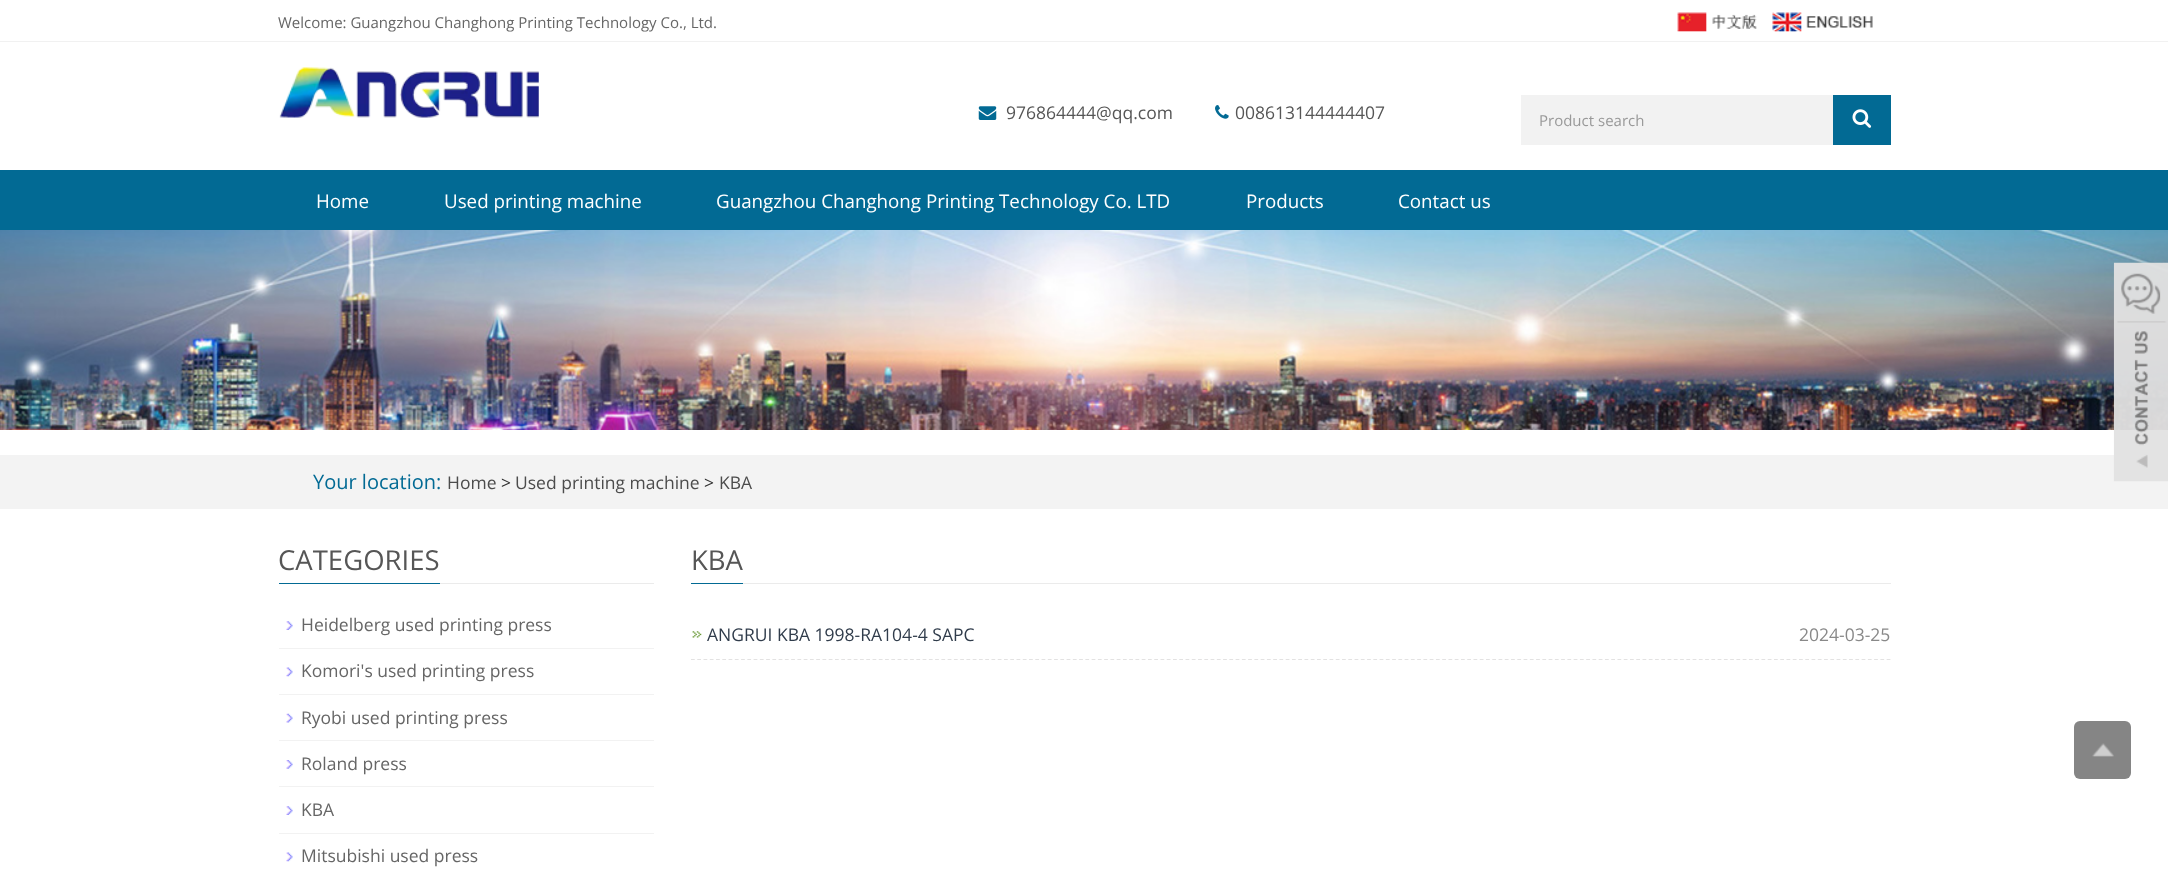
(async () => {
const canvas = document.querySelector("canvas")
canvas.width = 2168
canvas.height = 878
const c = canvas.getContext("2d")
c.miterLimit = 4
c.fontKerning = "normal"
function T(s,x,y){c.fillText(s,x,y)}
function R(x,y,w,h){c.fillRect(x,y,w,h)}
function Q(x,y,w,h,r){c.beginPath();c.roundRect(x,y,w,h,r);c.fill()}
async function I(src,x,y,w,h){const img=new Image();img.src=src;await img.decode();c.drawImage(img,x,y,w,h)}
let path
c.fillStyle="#fff"
R(0,0,2168,878)
c.fillStyle="#f1f1f1"
R(0,41,2168,1)
c.font="15px Open Sans"
c.fillStyle="#666"
T("Welcome: Guangzhou Changhong Printing Technology Co., Ltd.",278,28)
await I("1.png",1677,12,80,20)
await I("2.png",1772,12,101,20)
await I("3.png",279,67,260,51)
await I("4.png",978,106,19,14)
c.font="17.5px Open Sans"
c.fillStyle="#565656"
T("976864444@qq.com",1006,119)
await I("5.png",1215,105,14,14)
T("008613144444407",1235,119)
c.fillStyle="#f2f2f2"
R(1521,95,312,50)
c.font="15px Open Sans"
c.fillStyle="#999"
T("Product search",1539,126)
c.fillStyle="#026a94"
R(1833,95,58,50)
await I("6.png",1852,109,20,19)
R(0,170,2168,60)
c.font="18.75px Open Sans"
c.fillStyle="#fff"
T("Home",316,208)
T("Used printing machine",444,208)
T("Guangzhou Changhong Printing Technology Co. LTD",716,208)
T("Products",1246,208)
T("Contact us",1398,208)
await I("7.png",0,230,2168,200)
c.fillStyle="#f3f3f3"
R(0,455,2168,54)
c.font="20px Open Sans"
c.fillStyle="#026a94"
T("Your location:",313,489)
c.font="17.5px Open Sans"
c.fillStyle="#4c4c4c"
T("Home",447,489)
c.fillStyle="#2f2f2f"
T(">",501,489)
c.fillStyle="#4c4c4c"
T("Used printing machine",515,489)
c.fillStyle="#2f2f2f"
T(">",704,489)
c.fillStyle="#4c4c4c"
T("KBA",719,489)
await I("8.png",2113,262,55,220)
c.fillStyle="#ebebeb"
R(440,583,214,1)
c.fillStyle="#026a94"
R(279,583,161,1)
c.font="27.5px Open Sans"
c.fillStyle="#565656"
T("CATEGORIES",278,570)
await I("9.png",286,621,7,9)
c.fillStyle="#f2f2f2"
R(279,648,375,1)
c.font="17.5px Open Sans"
c.fillStyle="#666"
T("Heidelberg used printing press",301,631)
await I("10.png",286,667,7,10)
c.fillStyle="#f2f2f2"
R(279,694,375,1)
c.fillStyle="#666"
T("Komori's used printing press",301,677)
await I("11.png",286,713,7,10)
c.fillStyle="#f2f2f2"
R(279,740,375,1)
c.fillStyle="#666"
T("Ryobi used printing press",301,724)
await I("12.png",286,760,7,9)
c.fillStyle="#f2f2f2"
R(279,786,375,1)
c.fillStyle="#666"
T("Roland press",301,770)
await I("9.png",286,806,7,9)
c.fillStyle="#f2f2f2"
R(279,833,375,1)
c.fillStyle="#666"
T("KBA",301,816)
await I("10.png",286,852,7,10)
T("Mitsubishi used press",301,862)
c.fillStyle="#ebebeb"
R(743,583,1148,1)
c.fillStyle="#026a94"
R(691,583,52,1)
c.font="27.5px Open Sans"
c.fillStyle="#565656"
T("KBA",691,570)
await I("13.png",692,631,10,7)
path = new Path2D("M691 659.5h1200")
c.strokeStyle="#e3e2e2"
c.lineWidth=1.2
c.setLineDash([3.75,2.51])
c.stroke(path)
c.font="17.5px Open Sans"
c.fillStyle="#303c4b"
T("ANGRUI KBA 1998-RA104-4 SAPC",707,641)
c.fillStyle="#898989"
T("2024-03-25",1799,641)
c.fillStyle="#858585"
Q(2074,721,57,58,6)
await I("14.png",2092,743,22,14)
})()
